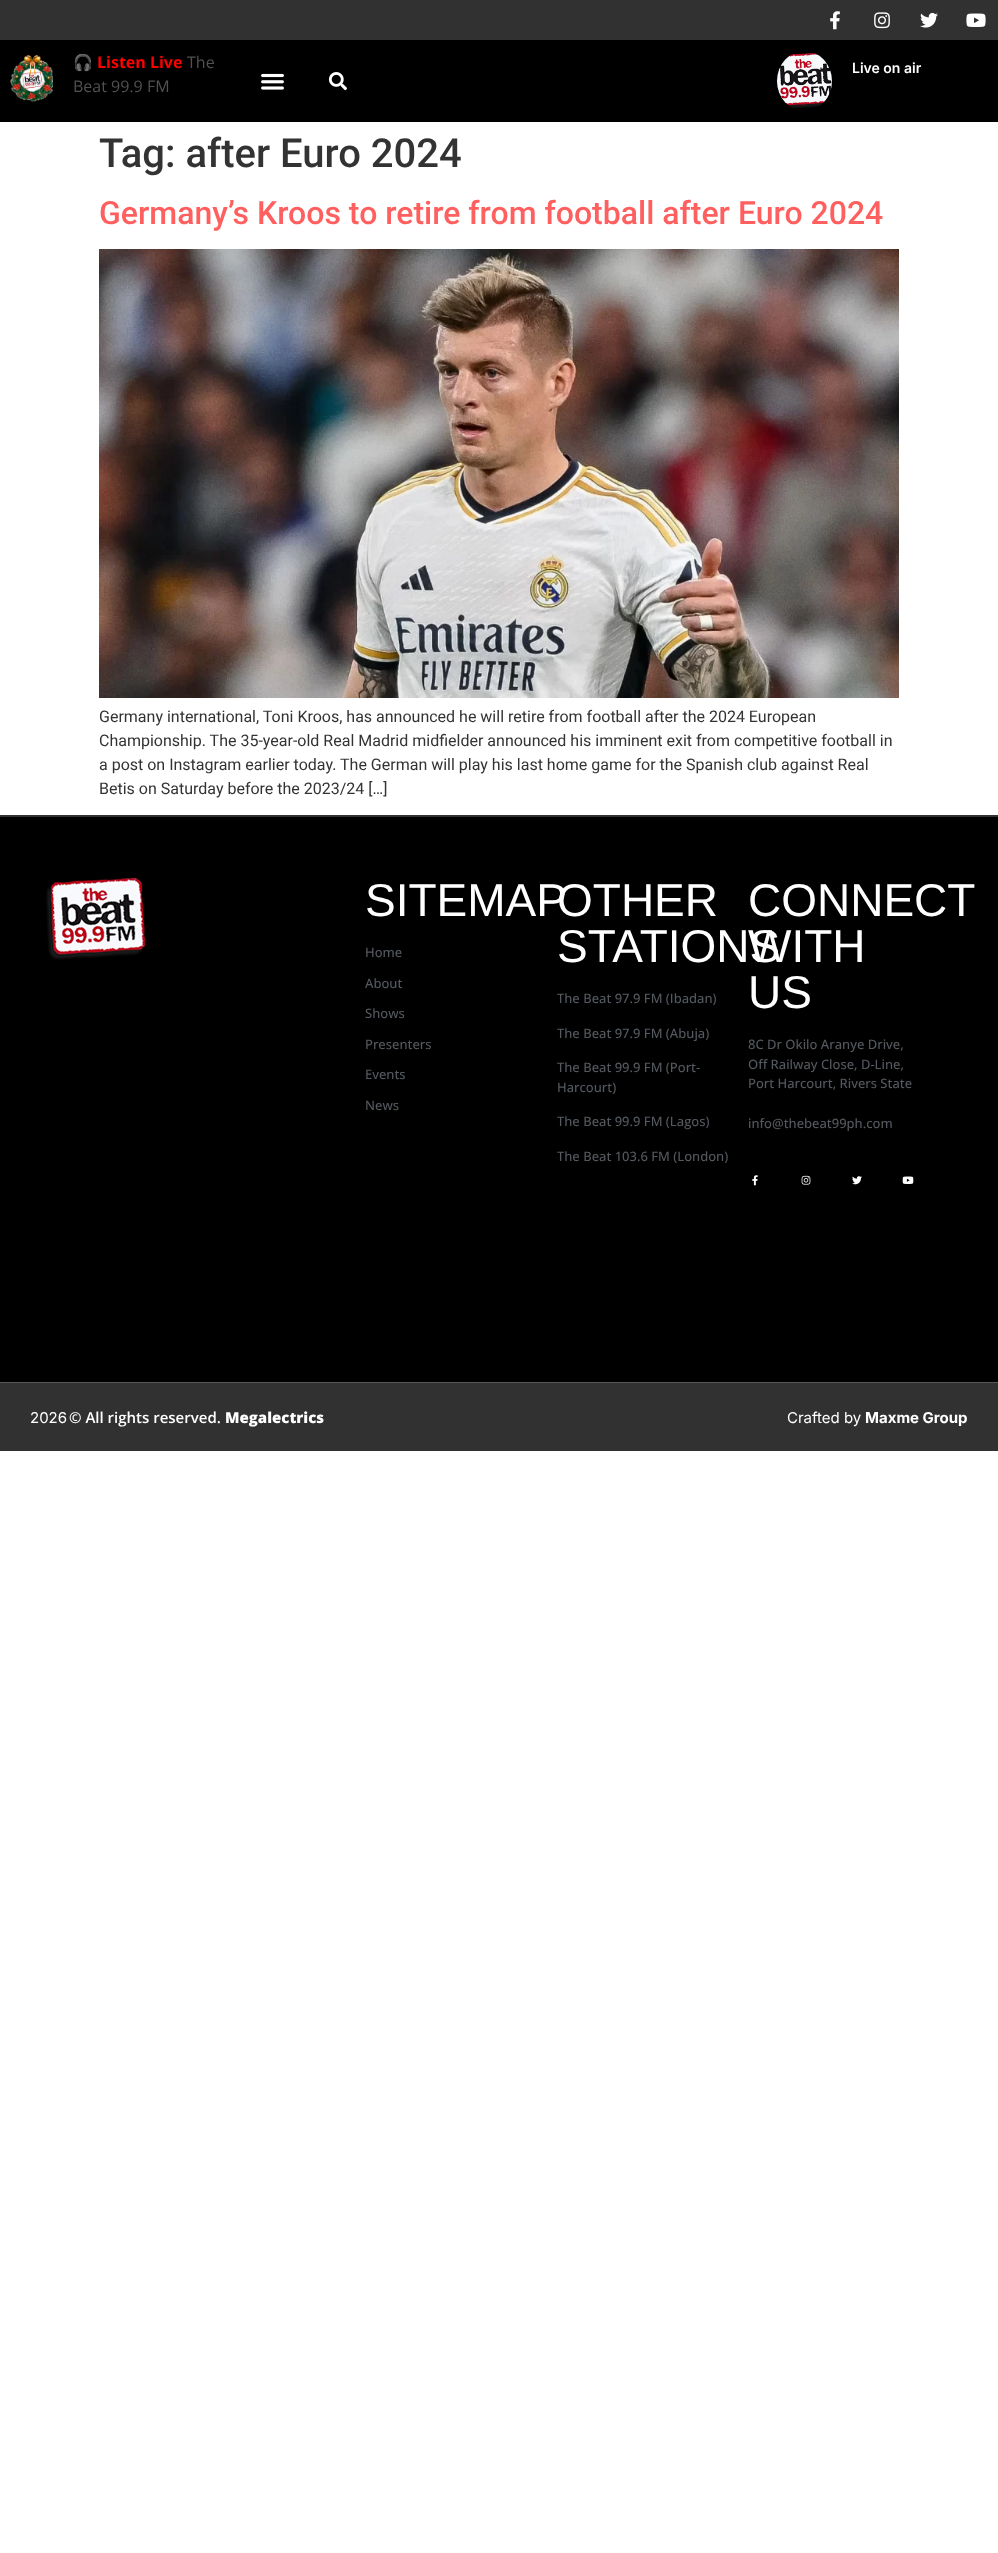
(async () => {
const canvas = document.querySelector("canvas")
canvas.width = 998
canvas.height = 2553
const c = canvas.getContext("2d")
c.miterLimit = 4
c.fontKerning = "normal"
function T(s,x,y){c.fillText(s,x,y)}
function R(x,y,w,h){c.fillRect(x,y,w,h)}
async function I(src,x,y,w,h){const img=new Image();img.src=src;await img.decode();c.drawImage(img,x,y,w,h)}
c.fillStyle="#fff"
R(0,0,998,2553)
c.fillStyle="#313131"
R(0,0,998,40)
await I("1.png",830,11,10,19)
await I("2.png",874,12,16,17)
await I("3.png",920,12,18,16)
await I("4.png",966,13,20,14)
c.fillStyle="#000"
R(0,40,998,82)
await I("5.png",10,55,43,47)
c.font="bold 16px Noto Color Emoji"
c.fillStyle="#ff5f5f"
T("🎧",73,68)
c.font="bold 16px Open Sans"
c.fillStyle="#f00"
T("Listen Live",97,68)
c.font="16px Open Sans"
c.fillStyle="#515151"
T("The",187,68)
T("Beat 99.9 FM",73,92)
await I("6.png",777,53,55,55)
c.font="600 14px Inter"
c.fillStyle="#fff"
T("Live on air",852,73)
await I("7.png",261,73,23,17)
await I("8.png",328,72,19,19)
c.font="500 40px Roboto"
c.fillStyle="#333"
T("Tag: after Euro 2024",99,167)
c.font="500 32px Roboto"
c.fillStyle="#ff5f5f"
T("Germany’s Kroos to retire from football after Euro 2024",99,224)
await I("9.png",99,249,800,449)
c.font="16px Roboto"
c.fillStyle="#333"
T("Germany international, Toni Kroos, has announced he will retire from football after the 2024 European",99,722)
T("Championship. The 35-year-old Real Madrid midfielder announced his imminent exit from competitive football in",99,746)
T("a post on Instagram earlier today. The German will play his last home game for the Spanish club against Real",99,770)
T("Betis on Saturday before the 2023/24 […]",99,794)
c.fillStyle="#000"
R(0,817,998,565)
c.fillStyle="#313131"
R(0,815,998,2)
await I("10.png",46,878,99,82)
c.font="46px Liberation Sans"
c.fillStyle="#fff"
T("SITEMAP",365,916)
c.font="500 13px Open Sans"
c.fillStyle="#54595f"
T("Home",365,957)
T("About",365,988)
T("Shows",365,1018)
T("Presenters",365,1049)
T("Events",365,1079)
T("News",365,1110)
c.font="46px Liberation Sans"
c.fillStyle="#fff"
T("OTHER",557,916)
T("STATIONS",557,962)
c.font="500 13px Open Sans"
c.fillStyle="#54595f"
T("The Beat 97.9 FM (Ibadan)",557,1003)
T("The Beat 97.9 FM (Abuja)",557,1038)
T("The Beat 99.9 FM (Port-",557,1072)
T("Harcourt)",557,1092)
T("The Beat 99.9 FM (Lagos)",557,1126)
T("The Beat 103.6 FM (London)",557,1161)
c.font="46px Liberation Sans"
c.fillStyle="#fff"
T("CONNECT",748,916)
T("WITH",748,962)
T("US",748,1008)
c.font="500 13px Open Sans"
c.fillStyle="#54595f"
T("8C Dr Okilo Aranye Drive,",748,1049)
T("Off Railway Close, D-Line,",748,1069)
T("Port Harcourt, Rivers State",748,1088)
T("info@thebeat99ph.com",748,1128)
await I("11.png",752,1175,6,11)
await I("12.png",801,1175,10,10)
await I("13.png",852,1176,10,9)
await I("14.png",902,1176,12,8)
c.fillStyle="#313131"
R(0,1383,998,68)
c.fillStyle="#585858"
R(0,1382,998,1)
c.font="15px Inter"
c.fillStyle="#fff"
T("2026",30,1423)
c.font="600 15px Open Sans"
T("© All rights reserved.",69,1423)
c.font="800 15px Open Sans"
T("Megalectrics",225,1423)
c.font="15px Inter"
T("Crafted by",787,1423)
c.font="bold 15px Inter"
T("Maxme Group",865,1423)
})()
